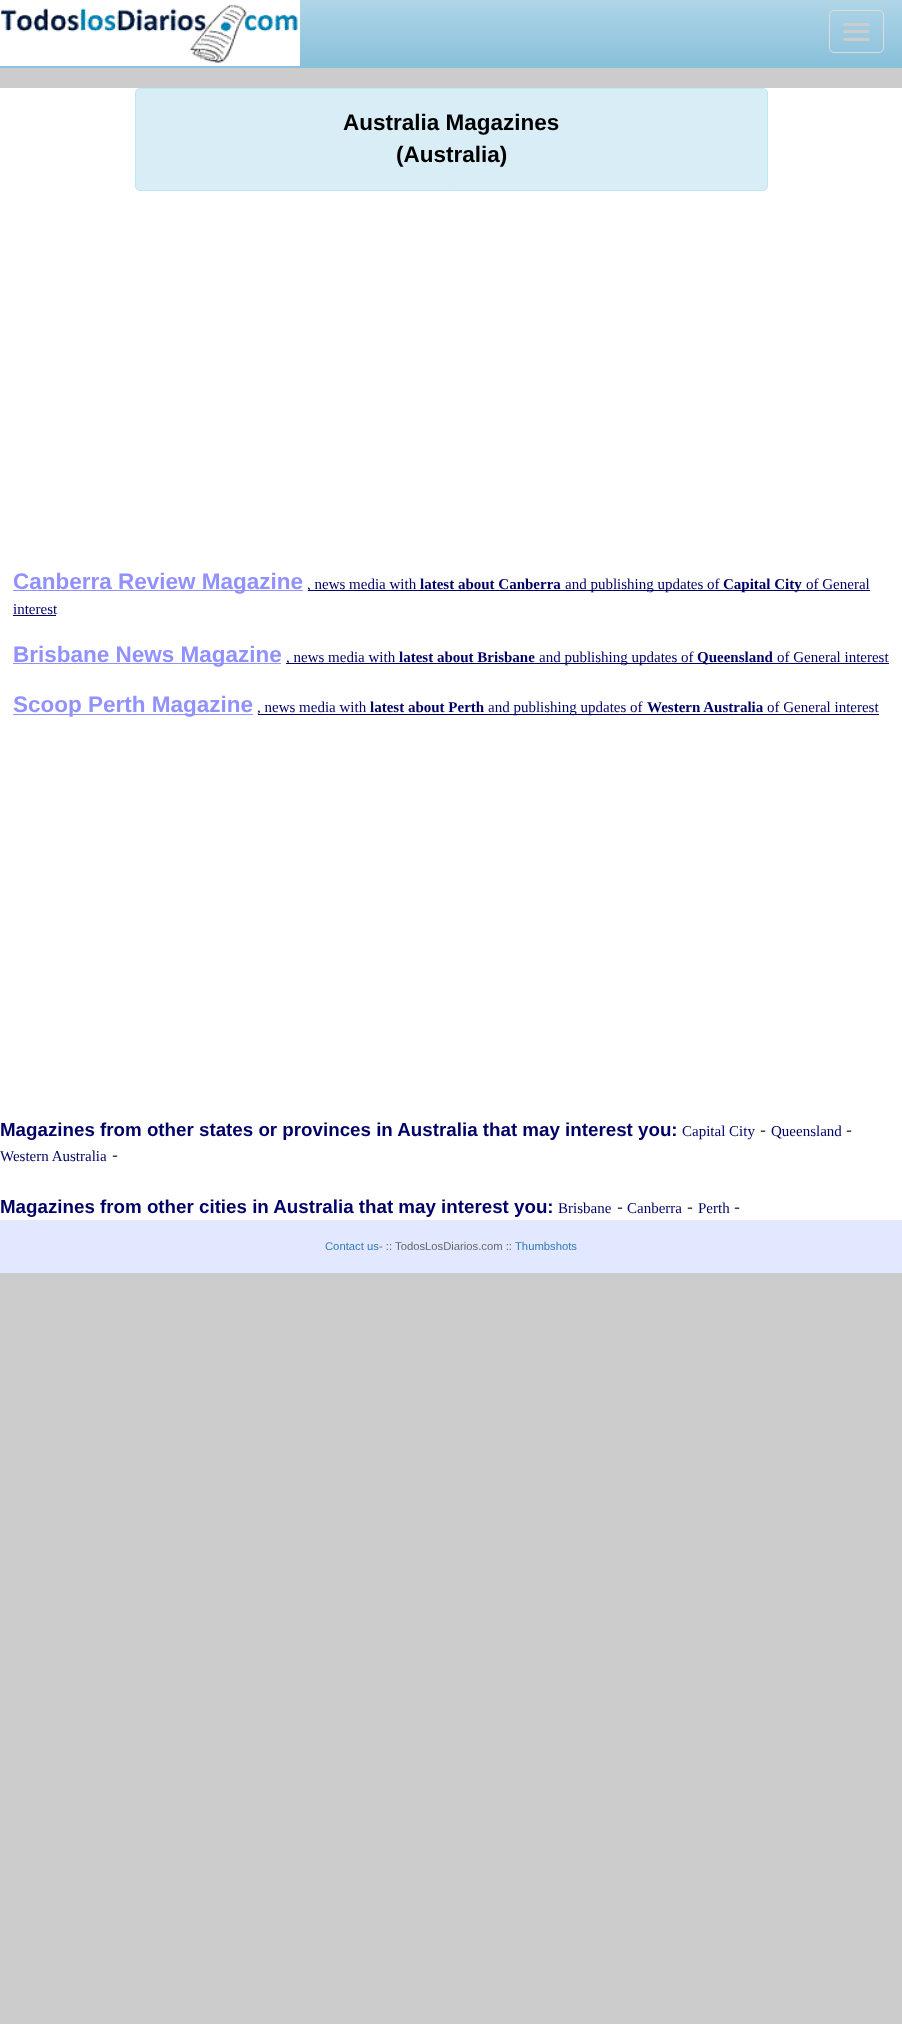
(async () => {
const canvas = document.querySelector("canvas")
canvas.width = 902
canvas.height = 2024
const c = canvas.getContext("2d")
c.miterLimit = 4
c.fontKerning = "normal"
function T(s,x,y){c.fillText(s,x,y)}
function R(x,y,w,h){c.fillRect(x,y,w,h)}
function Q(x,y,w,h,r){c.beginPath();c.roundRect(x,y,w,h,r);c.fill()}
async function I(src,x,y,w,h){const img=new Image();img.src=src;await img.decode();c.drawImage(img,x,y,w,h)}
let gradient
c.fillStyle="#ccc"
R(0,0,902,2024)
c.fillStyle="#89c0db"
R(0,66,902,2)
gradient = c.createLinearGradient(451,0,451,66)
gradient.addColorStop(0,"#b0d5e7")
gradient.addColorStop(1,"#89c0db")
c.fillStyle = gradient
R(300,0,602,66)
await I("1.png",0,0,300,66)
c.beginPath()
c.roundRect(829.5,10.5,54,42,4.5)
c.strokeStyle="#ddd"
c.stroke()
c.fillStyle="#ccc"
Q(843,23,27,3,1.5)
Q(843,30,27,3,1.5)
Q(843,38,27,3,1.5)
c.fillStyle="#fff"
R(0,88,902,1132)
c.fillStyle="#d9edf7"
c.beginPath()
c.roundRect(135.5,88.5,632,102,4.5)
c.fill()
c.strokeStyle="#bce8f1"
c.stroke()
c.font="bold 22.5px Liberation Sans"
c.fillStyle="#000"
T("Australia Magazines",343,130)
T("(Australia)",396,162)
c.fillStyle="#9191ff"
R(13,590,290,1)
T("Canberra Review Magazine",13,589)
c.fillStyle="#006"
R(308,590,562,1)
c.font="15px Liberation Serif"
T(", news media with",307,589)
c.font="bold 15px Liberation Serif"
T("latest about Canberra",420,589)
c.font="15px Liberation Serif"
T("and publishing updates of",565,589)
c.font="bold 15px Liberation Serif"
T("Capital City",723,589)
c.font="15px Liberation Serif"
T("of General",806,589)
T("interest",13,614)
R(13,615,43,1)
c.fillStyle="#9191ff"
R(13,663,268,1)
c.font="bold 22.5px Liberation Sans"
T("Brisbane News Magazine",13,662)
c.fillStyle="#006"
R(286,663,603,1)
c.font="15px Liberation Serif"
T(", news media with",286,662)
c.font="bold 15px Liberation Serif"
T("latest about Brisbane",399,662)
c.font="15px Liberation Serif"
T("and publishing updates of",539,662)
c.font="bold 15px Liberation Serif"
T("Queensland",697,662)
c.font="15px Liberation Serif"
T("of General interest",777,662)
c.fillStyle="#9191ff"
R(13,714,240,1)
c.font="bold 22.5px Liberation Sans"
T("Scoop Perth Magazine",13,712)
c.fillStyle="#006"
R(258,714,621,1)
c.font="15px Liberation Serif"
T(", news media with",257,712)
c.font="bold 15px Liberation Serif"
T("latest about Perth",370,712)
c.font="15px Liberation Serif"
T("and publishing updates of",488,712)
c.font="bold 15px Liberation Serif"
T("Western Australia",647,712)
c.font="15px Liberation Serif"
T("of General interest",767,712)
c.font="bold 18.75px Liberation Sans"
T("Magazines from other states or provinces in Australia that may interest you:",0,1136)
c.font="15px Liberation Serif"
T("Capital City",682,1136)
c.font="18px Liberation Sans"
c.fillStyle="#333"
T("-",760,1136)
c.font="15px Liberation Serif"
c.fillStyle="#006"
T("Queensland",771,1136)
c.font="18px Liberation Sans"
c.fillStyle="#333"
T("-",846,1136)
c.font="15px Liberation Serif"
c.fillStyle="#006"
T("Western Australia",0,1161)
c.font="18px Liberation Sans"
c.fillStyle="#333"
T("-",112,1161)
c.font="bold 18.75px Liberation Sans"
c.fillStyle="#006"
T("Magazines from other cities in Australia that may interest you:",0,1213)
c.font="15px Liberation Serif"
T("Brisbane",558,1213)
c.font="18px Liberation Sans"
c.fillStyle="#333"
T("-",617,1213)
c.font="15px Liberation Serif"
c.fillStyle="#006"
T("Canberra",627,1213)
c.font="18px Liberation Sans"
c.fillStyle="#333"
T("-",687,1213)
c.font="15px Liberation Serif"
c.fillStyle="#006"
T("Perth",698,1213)
c.font="18px Liberation Sans"
c.fillStyle="#333"
T("-",734,1213)
c.fillStyle="#e1e8ff"
R(0,1220,902,53)
c.font="11.25px Liberation Sans"
c.fillStyle="#337ab7"
T("Contact us",325,1250)
c.fillStyle="#666"
T("- :: TodosLosDiarios.com ::",379,1250)
c.fillStyle="#337ab7"
T("Thumbshots",515,1250)
})()
